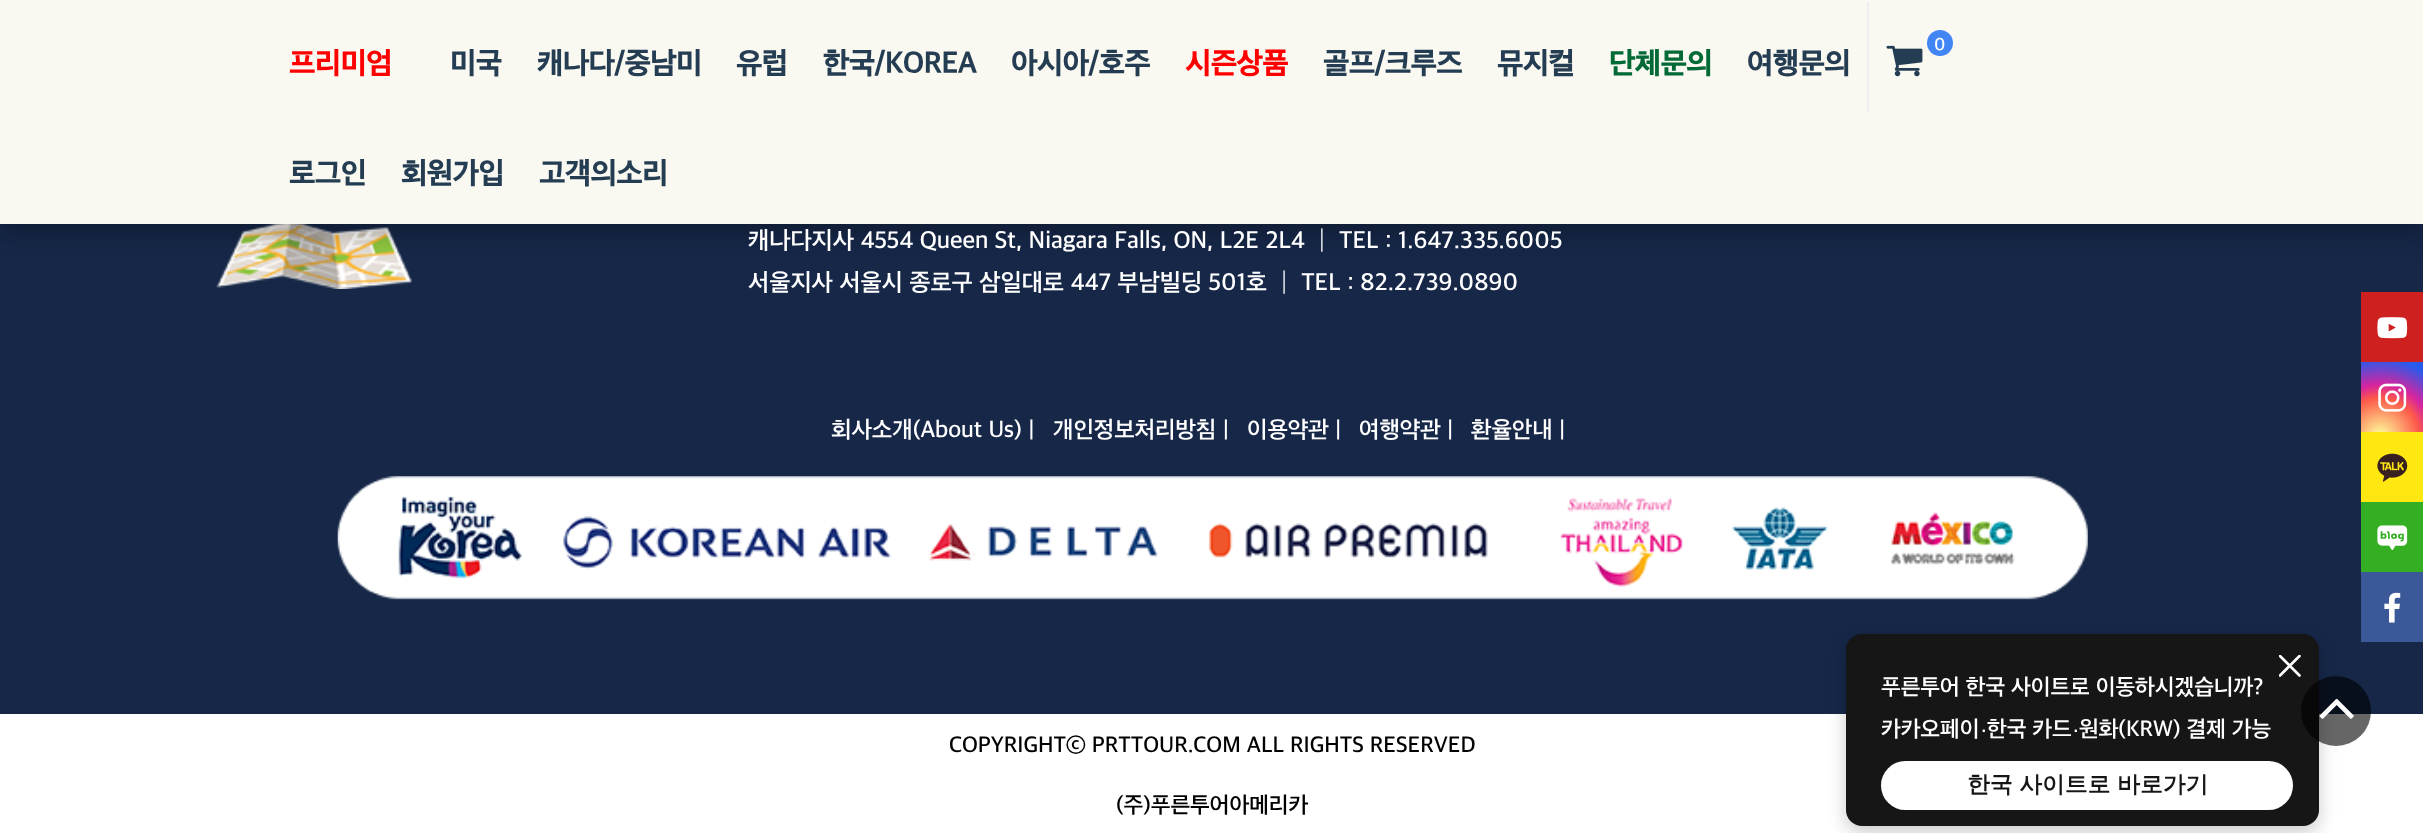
(async () => {
const canvas = document.querySelector("canvas")
canvas.width = 2423
canvas.height = 833
const c = canvas.getContext("2d")
c.miterLimit = 4
c.fontKerning = "normal"
function T(s,x,y){c.fillText(s,x,y)}
function R(x,y,w,h){c.fillRect(x,y,w,h)}
function Q(x,y,w,h,r){c.beginPath();c.roundRect(x,y,w,h,r);c.fill()}
async function I(src,x,y,w,h){const img=new Image();img.src=src;await img.decode();c.drawImage(img,x,y,w,h)}
let gradient, path
c.fillStyle="#fff"
R(0,0,2423,833)
c.fillStyle="#162748"
R(0,224,2423,490)
await I("2.png",216,224,196,65)
c.fillStyle="#00000052"
c.filter="blur(13px)"
c.beginPath()
c.rect(0,7,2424,224)
c.fill()
c.filter="none"
c.fillStyle="#f9f8f1"
R(0,0,2423,224)
c.fillStyle="#eee"
R(1867,2,2,110)
await I("1.png",1886,45,37,32)
c.fillStyle="#4285f4"
c.beginPath()
c.arc(1940,43,13,0,7)
c.fill()
c.font="18px 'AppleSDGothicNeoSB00'"
c.fillStyle="#fff"
T("0",1934,51)
c.font="bold 29.75px 'AppleSDGothicNeoSB00'"
c.fillStyle="#f00"
T("프리미엄",289,74)
c.fillStyle="#253d52"
T("미국",450,74)
T("캐나다/중남미",537,74)
T("유럽",736,74)
T("한국/KOREA",823,74)
T("아시아/호주",1011,74)
c.fillStyle="#f00"
T("시즌상품",1185,74)
c.fillStyle="#253d52"
T("골프/크루즈",1323,74)
T("뮤지컬",1497,74)
c.fillStyle="#006935"
T("단체문의",1609,74)
c.fillStyle="#253d52"
T("여행문의",1747,74)
T("로그인",289,184)
T("회원가입",401,184)
T("고객의소리",539,184)
c.font="24.5px 'AppleSDGothicNeoSB00'"
c.fillStyle="#fff"
T("캐나다지사 4554 Queen St, Niagara Falls, ON, L2E 2L4 ┃ TEL : 1.647.335.6005",748,249)
T("서울지사 서울시 종로구 삼일대로 447 부남빌딩 501호 ┃ TEL : 82.2.739.0890",748,291)
c.font="23.6px 'AppleSDGothicNeoSB00'"
T("회사소개(About Us) |",831,438)
T("개인정보처리방침 |",1053,438)
T("이용약관 |",1247,438)
T("여행약관 |",1359,438)
T("환율안내 |",1471,438)
await I("3.png",337,476,1751,124)
c.fillStyle="#cd201f"
R(2361,292,62,70)
await I("4.png",2377,317,31,22)
gradient = c.createRadialGradient(2380,437,0,2380,437,87)
gradient.addColorStop(0,"#fdf497")
gradient.addColorStop(.05,"#fdf497")
gradient.addColorStop(.45,"#fd5949")
gradient.addColorStop(.6,"#d6249f")
gradient.addColorStop(.9,"#285aeb")
c.fillStyle = gradient
R(2361,362,62,70)
await I("5.png",2378,383,29,29)
c.fillStyle="#ffe812"
R(2361,432,62,70)
await I("6.png",2377,453,31,29)
c.fillStyle="#34af23"
R(2361,502,62,70)
await I("7.png",2377,525,31,25)
c.fillStyle="#3b5998"
R(2361,572,62,70)
await I("8.png",2384,592,17,31)
c.font="22.75px 'AppleSDGothicNeoSB00'"
c.fillStyle="#000"
T("COPYRIGHTⓒ PRTTOUR.COM ALL RIGHTS RESERVED",949,753)
c.fillStyle="#00000033"
c.filter="blur(9px)"
c.beginPath()
c.roundRect(1846,641,473,192,16)
c.fill()
c.filter="none"
c.fillStyle="#161616"
Q(1846,634,473,192,16)
c.save()
c.beginPath()
c.rect(2279,655,22,22)
c.clip()
path = new Path2D("M2280 656l19.5 19.5m0-19.5l-19.5 19.5")
c.strokeStyle="#fff"
c.lineWidth=2.6
c.lineCap="round"
c.stroke(path)
c.restore()
c.fillStyle="#fff"
T("푸른투어 한국 사이트로 이동하시겠습니까?",1881,695)
T("카카오페이",1881,737)
c.font="22.75px Liberation Sans"
T("·",1980,737)
c.font="22.75px 'AppleSDGothicNeoSB00'"
T("한국 카드",1987,737)
c.font="22.75px Liberation Sans"
T("·",2072,737)
c.font="22.75px 'AppleSDGothicNeoSB00'"
T("원화(KRW) 결제 가능",2079,737)
Q(1881,761,412,49,24.5)
c.font="bold 22.75px WenQuanYi Zen Hei"
c.fillStyle="#161616"
T("한국 사이트로 바로가기",1967,792)
c.fillStyle="#00000099"
c.beginPath()
c.arc(2336,711,35,0,7)
c.fill()
await I("9.png",2319,698,35,21)
c.font="22.75px 'AppleSDGothicNeoSB00'"
c.fillStyle="#000"
T("(주)푸른투어아메리카",1116,813)
})()
